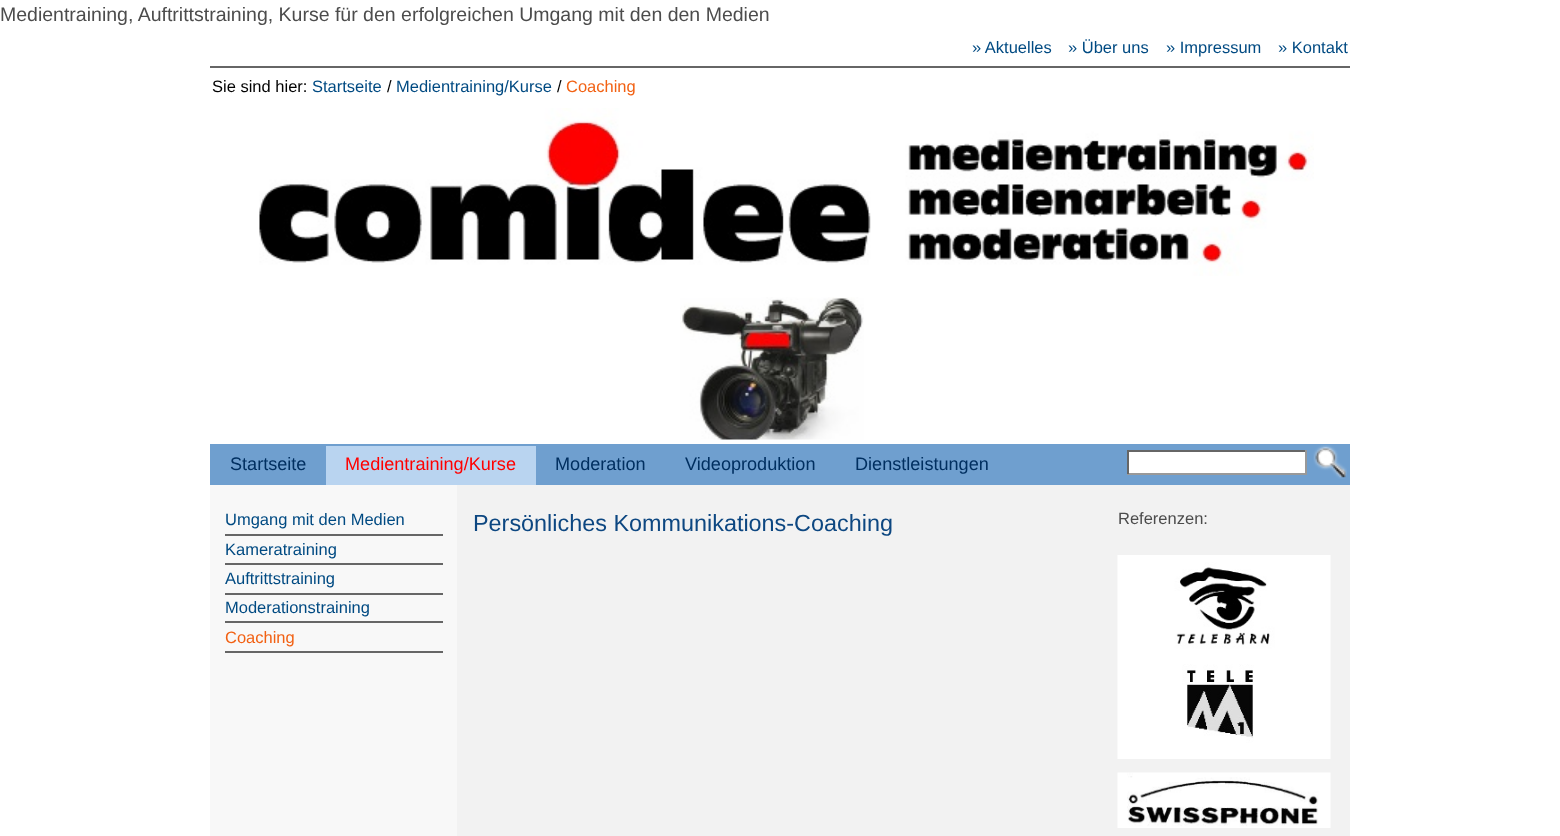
(async () => {
const canvas = document.querySelector("canvas")
canvas.width = 1560
canvas.height = 836
const c = canvas.getContext("2d")
c.miterLimit = 4
c.fontKerning = "normal"
function T(s,x,y){c.fillText(s,x,y)}
function R(x,y,w,h){c.fillRect(x,y,w,h)}
async function I(src,x,y,w,h){const img=new Image();img.src=src;await img.decode();c.drawImage(img,x,y,w,h)}
c.fillStyle="#fff"
R(0,0,1560,836)
c.font="19.5px Liberation Sans"
c.fillStyle="#4c4c4c"
T("Medientraining, Auftrittstraining, Kurse für den erfolgreichen Umgang mit den den Medien",0,21)
c.fillStyle="#f2f2f2"
R(457,485,893,351)
c.fillStyle="#f8f8f8"
R(210,485,247,351)
c.fillStyle="#666"
R(210,66,1140,2)
c.font="16.5px Liberation Sans"
c.fillStyle="#004a82"
T("» Aktuelles",972,53)
T("» Über uns",1068,53)
T("» Impressum",1166,53)
T("» Kontakt",1278,53)
c.fillStyle="#000"
T("Sie sind hier:",212,92)
c.fillStyle="#004a82"
T("Startseite",312,92)
c.fillStyle="#000"
T("/",387,92)
c.fillStyle="#004a82"
T("Medientraining/Kurse",396,92)
c.fillStyle="#000"
T("/",557,92)
c.fillStyle="#f26113"
T("Coaching",566,92)
await I("1.png",259,108,1055,168)
await I("2.png",680,297,184,143)
c.fillStyle="#6f9fcf"
R(210,444,1140,41)
c.font="18.1px Liberation Sans"
c.fillStyle="#002f60"
T("Startseite",230,470)
c.fillStyle="#b9d4f0"
R(326,446,210,39)
c.fillStyle="#f00"
T("Medientraining/Kurse",345,470)
c.fillStyle="#002f60"
T("Moderation",555,470)
T("Videoproduktion",685,470)
T("Dienstleistungen",855,470)
c.fillStyle="#fff"
R(1129,452,176,21)
c.fillStyle="#666"
R(1127,450,180,2)
c.fillStyle="#999"
R(1305,450,2,24)
R(1127,473,180,2)
c.fillStyle="#666"
R(1127,450,2,24)
await I("3.png",1313,445,34,34)
R(225,534,218,2)
c.font="16.5px Liberation Sans"
c.fillStyle="#004a82"
T("Umgang mit den Medien",225,525)
c.fillStyle="#666"
R(225,563,218,2)
c.fillStyle="#004a82"
T("Kameratraining",225,555)
c.fillStyle="#666"
R(225,593,218,2)
c.fillStyle="#004a82"
T("Auftrittstraining",225,584)
c.fillStyle="#666"
R(225,621,218,2)
c.fillStyle="#004a82"
T("Moderationstraining",225,613)
c.fillStyle="#666"
R(225,651,218,2)
c.fillStyle="#f26113"
T("Coaching",225,643)
c.font="23.4px Liberation Sans"
c.fillStyle="#0d4781"
T("Persönliches Kommunikations-Coaching",473,531)
c.font="16.5px Liberation Sans"
c.fillStyle="#4c4c4c"
T("Referenzen:",1118,524)
await I("4.png",1117,555,214,102)
await I("5.png",1117,657,214,102)
await I("6.png",1117,772,214,56)
})()
